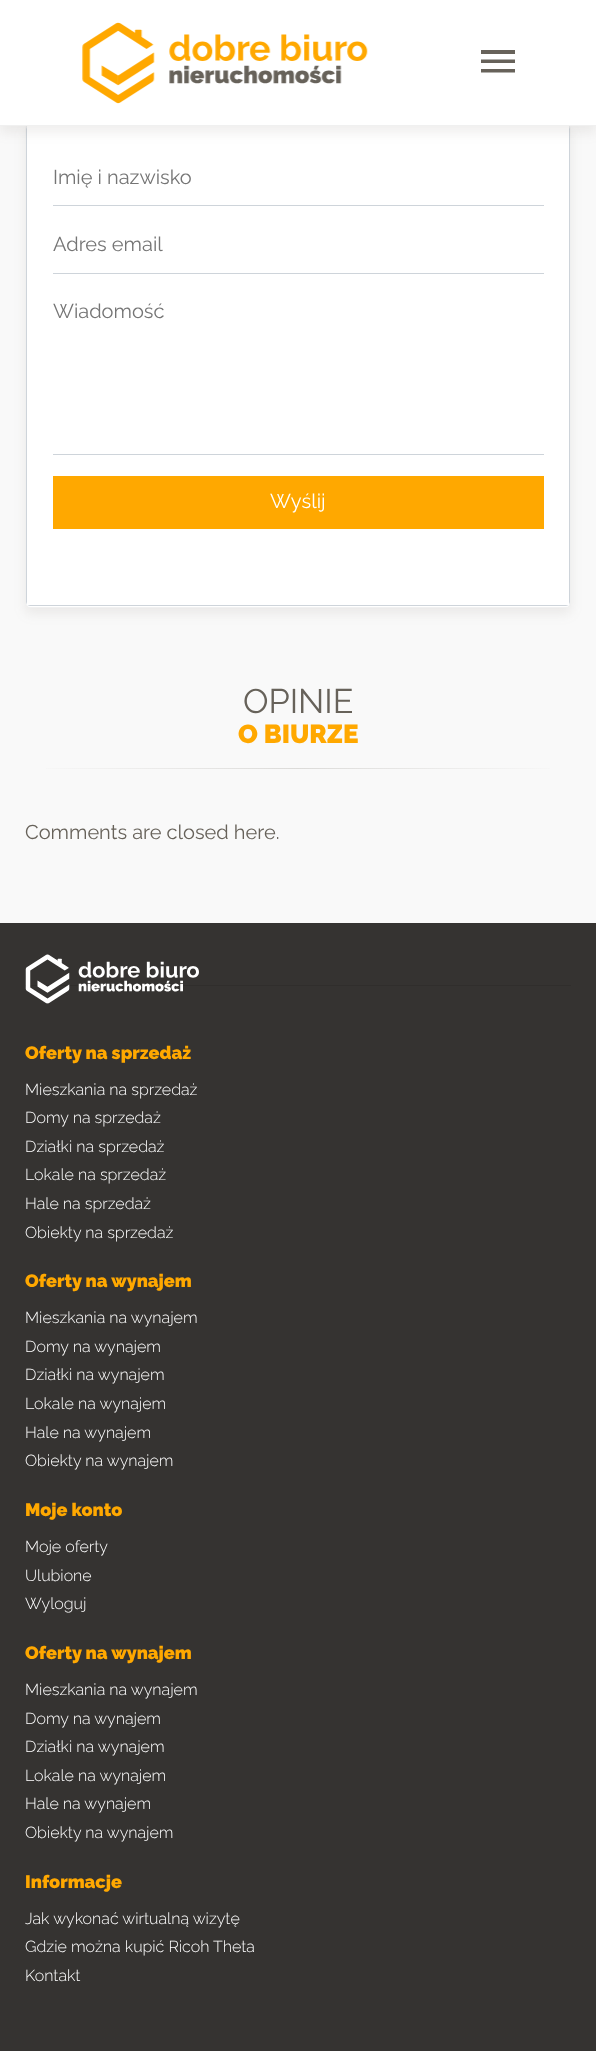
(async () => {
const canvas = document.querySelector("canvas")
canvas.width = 596
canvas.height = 2051
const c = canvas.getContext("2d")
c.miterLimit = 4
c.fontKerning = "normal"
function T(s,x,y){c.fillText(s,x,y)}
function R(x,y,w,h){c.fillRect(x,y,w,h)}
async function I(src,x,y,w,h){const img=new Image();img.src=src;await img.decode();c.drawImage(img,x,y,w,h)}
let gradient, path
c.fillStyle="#f9f9f9"
R(0,0,596,2051)
c.fillStyle="#67625a1a"
c.filter="blur(6px)"
c.beginPath()
c.roundRect(25,130,546,484,5)
c.fill()
c.filter="none"
c.fillStyle="#fff"
c.beginPath()
c.roundRect(25.5,124.5,545,483,4.5)
c.fill()
c.strokeStyle="#f0f0f0"
c.stroke()
c.fillStyle="#ced4da"
path = new Path2D("M26 129v473l1 3v-479zm4-4l-3 1h542l-3-1zm540 4l-1-3v479l1-3zm-4 477l3-1h-542l3 1z")
c.fill(path,"evenodd")
c.fillStyle="#67625a1a"
c.filter="blur(6px)"
c.beginPath()
c.rect(0,6,596,127)
c.fill()
c.filter="none"
c.fillStyle="#fff"
R(0,0,596,125)
c.fillStyle="#f0f0f0"
R(0,125,596,1)
await I("1.png",82,22,286,82)
c.fillStyle="#67625a"
path = new Path2D("M481 72.5v-3.5h34v3.5zm0-9.5v-3.5h34v3.5zm0-13h34v4h-34z")
c.fill(path)
c.fillStyle="#ced4da"
R(53,205,491,1)
c.font="20px Raleway"
c.fillStyle="#757575"
T("Imię i nazwisko",53,184)
c.fillStyle="#ced4da"
R(53,273,491,1)
c.fillStyle="#757575"
T("Adres email",53,251)
c.fillStyle="#ced4da"
R(53,454,491,1)
c.fillStyle="#757575"
T("Wiadomość",53,318)
c.fillStyle="#ffa800"
R(53,476,491,53)
c.fillStyle="#fff"
T("Wyślij",270,508)
c.font="34px Raleway"
c.fillStyle="#67625a"
T("OPINIE",243,713)
c.font="900 26px Raleway"
c.fillStyle="#ffa800"
T("O BIURZE",238,743)
gradient = c.createLinearGradient(25,768,571,768)
gradient.addColorStop(0,"#f9f9f9")
gradient.addColorStop(.5,"#dcdbd9")
gradient.addColorStop(1,"#f9f9f9")
c.fillStyle = gradient
R(46,768,504,1)
c.font="20px Raleway"
c.fillStyle="#67625a"
T("Comments are closed here.",25,839)
c.fillStyle="#353331"
R(0,923,596,1128)
c.fillStyle="#302e2c"
R(25,985,546,1)
await I("2.png",25,954,174,50)
c.font="900 18px Raleway"
c.fillStyle="#ffa800"
T("Oferty na sprzedaż",25,1059)
c.font="300 16px Raleway"
c.fillStyle="#fff"
T("Mieszkania na sprzedaż",25,1095)
T("Domy na sprzedaż",25,1123)
T("Działki na sprzedaż",25,1152)
T("Lokale na sprzedaż",25,1180)
T("Hale na sprzedaż",25,1209)
T("Obiekty na sprzedaż",25,1238)
c.font="900 18px Raleway"
c.fillStyle="#ffa800"
T("Oferty na wynajem",25,1287)
c.font="300 16px Raleway"
c.fillStyle="#fff"
T("Mieszkania na wynajem",25,1323)
T("Domy na wynajem",25,1352)
T("Działki na wynajem",25,1380)
T("Lokale na wynajem",25,1409)
T("Hale na wynajem",25,1438)
T("Obiekty na wynajem",25,1466)
c.font="900 18px Raleway"
c.fillStyle="#ffa800"
T("Moje konto",25,1516)
c.font="300 16px Raleway"
c.fillStyle="#fff"
T("Moje oferty",25,1552)
T("Ulubione",25,1581)
T("Wyloguj",25,1609)
c.font="900 18px Raleway"
c.fillStyle="#ffa800"
T("Oferty na wynajem",25,1659)
c.font="300 16px Raleway"
c.fillStyle="#fff"
T("Mieszkania na wynajem",25,1695)
T("Domy na wynajem",25,1724)
T("Działki na wynajem",25,1752)
T("Lokale na wynajem",25,1781)
T("Hale na wynajem",25,1809)
T("Obiekty na wynajem",25,1838)
c.font="900 18px Raleway"
c.fillStyle="#ffa800"
T("Informacje",25,1888)
c.font="300 16px Raleway"
c.fillStyle="#fff"
T("Jak wykonać wirtualną wizytę",25,1924)
T("Gdzie można kupić Ricoh Theta",25,1952)
T("Kontakt",25,1981)
})()
